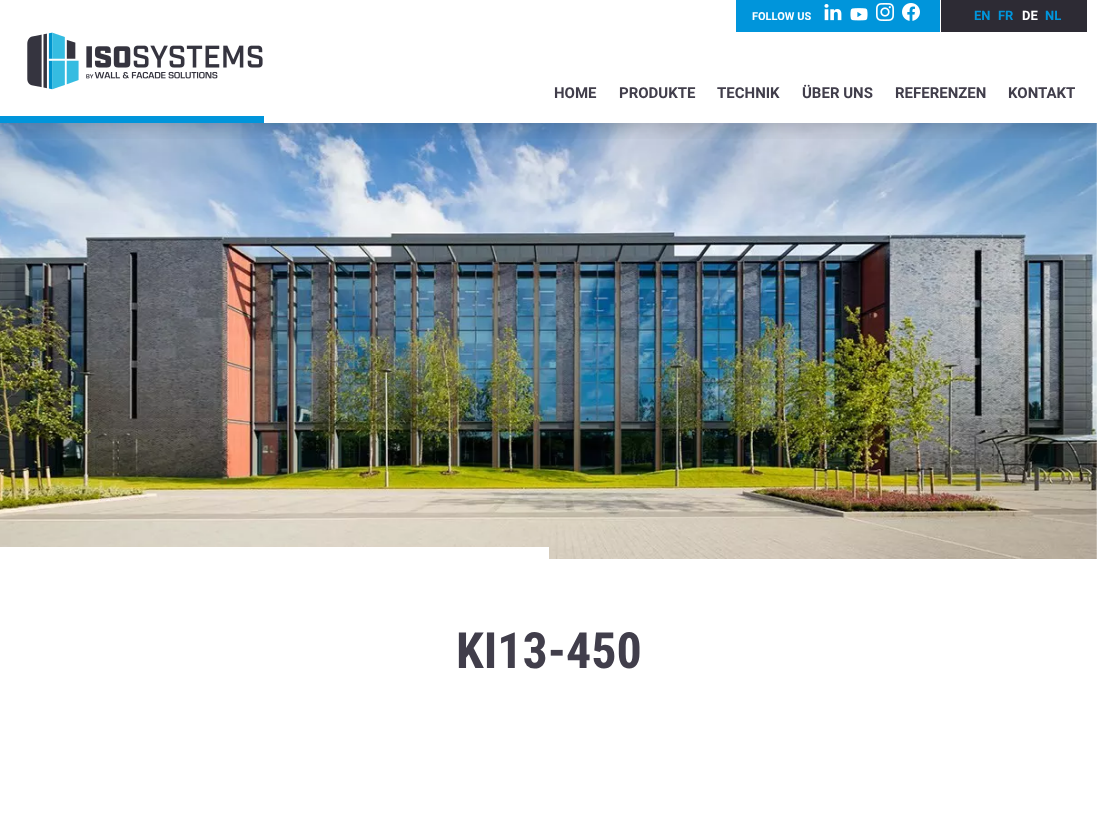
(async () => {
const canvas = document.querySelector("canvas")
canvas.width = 1097
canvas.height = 820
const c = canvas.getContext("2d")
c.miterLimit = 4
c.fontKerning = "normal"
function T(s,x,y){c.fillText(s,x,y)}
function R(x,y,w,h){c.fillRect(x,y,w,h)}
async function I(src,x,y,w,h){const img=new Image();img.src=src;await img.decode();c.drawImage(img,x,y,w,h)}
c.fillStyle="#fff"
R(0,0,1097,820)
await I("6.png",0,123,1097,436)
c.save()
c.beginPath()
c.rect(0,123,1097,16)
c.clip()
c.fillStyle="#00000033"
c.filter="blur(10px)"
c.beginPath()
c.rect(3,3,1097,123)
c.fill()
c.filter="none"
c.restore()
c.fillStyle="#0095db"
R(736,0,204,32)
c.font="bold 11px Roboto"
c.fillStyle="#fff"
T("FOLLOW US",752,20)
await I("1.png",824,4,18,17)
await I("2.png",850,8,18,13)
await I("3.png",876,3,18,18)
await I("4.png",902,3,18,18)
c.fillStyle="#2d2b34"
R(941,0,146,32)
c.font="bold 13px Roboto"
c.fillStyle="#0095db"
T("EN",974,20)
T("FR",998,20)
c.fillStyle="#fff"
T("DE",1022,20)
c.fillStyle="#0095db"
T("NL",1045,20)
await I("5.png",27,32,236,58)
R(0,116,264,7)
c.font="bold 15px Roboto"
c.fillStyle="#413e4b"
T("HOME",554,98)
T("PRODUKTE",619,98)
T("TECHNIK",717,98)
T("ÜBER UNS",802,98)
T("REFERENZEN",895,98)
T("KONTAKT",1008,98)
c.fillStyle="#fff"
R(0,547,549,12)
c.font="bold 50px Roboto Condensed"
c.fillStyle="#413e4b"
T("KI13-450",456,668)
})()
